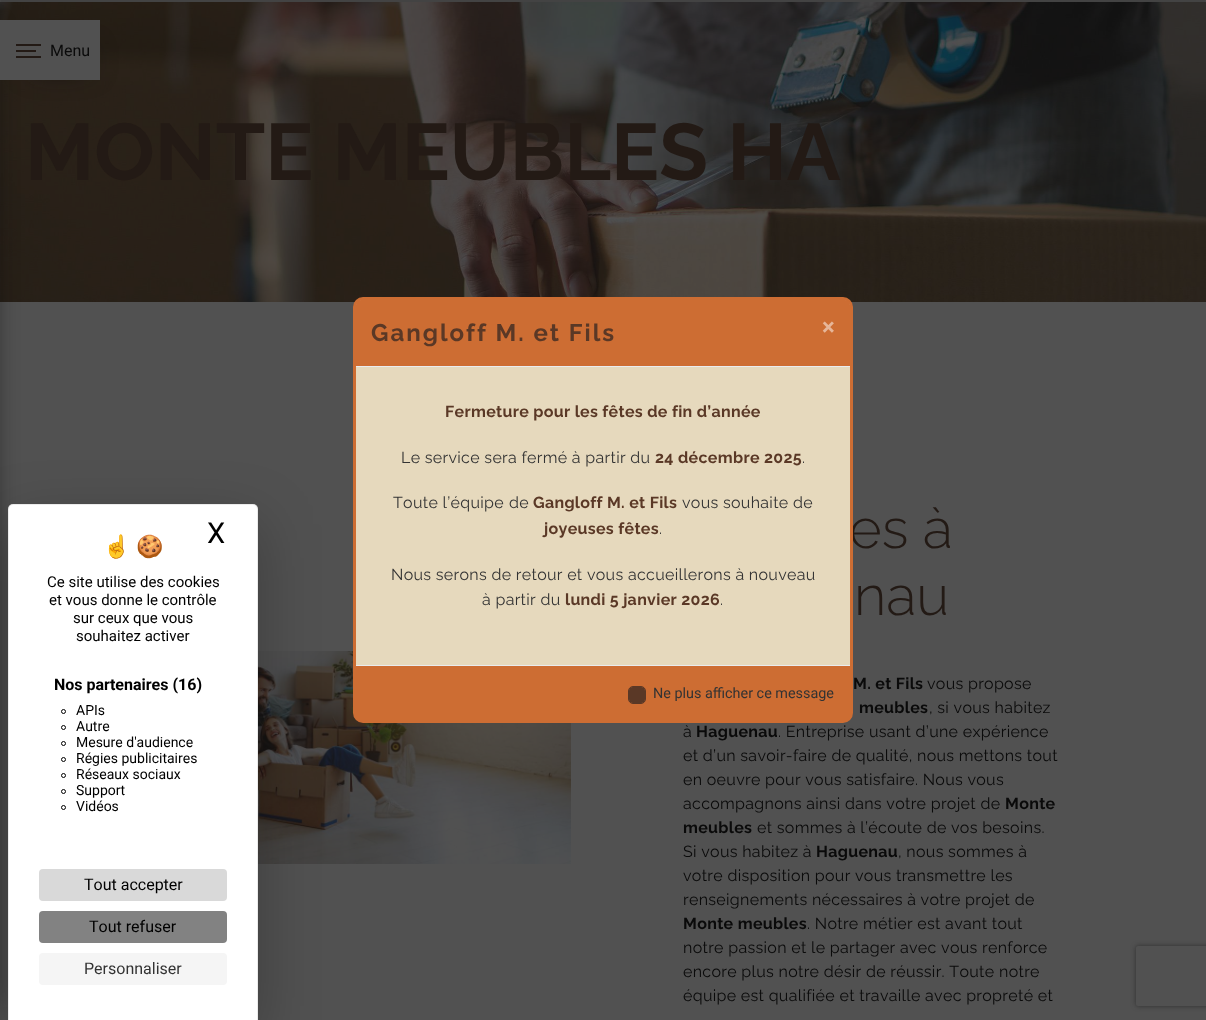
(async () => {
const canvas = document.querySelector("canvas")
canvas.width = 1206
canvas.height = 1020
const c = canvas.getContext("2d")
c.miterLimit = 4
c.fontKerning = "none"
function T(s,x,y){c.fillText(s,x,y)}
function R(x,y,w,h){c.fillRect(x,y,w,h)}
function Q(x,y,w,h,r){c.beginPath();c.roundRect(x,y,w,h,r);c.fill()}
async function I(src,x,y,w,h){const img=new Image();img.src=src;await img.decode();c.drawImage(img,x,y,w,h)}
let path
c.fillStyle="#515151"
R(0,0,1206,1020)
await I("1.png",0,2,1206,300)
c.fillStyle="#434343"
Q(0,0,1206,2,1)
c.fillStyle="#0a0a0a"
c.filter="blur(14.5px)"
c.beginPath()
c.rect(-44,33,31,974)
c.fill()
c.filter="none"
c.filter="blur(14.5px)"
c.beginPath()
c.rect(33,53,54,14)
c.fill()
c.filter="none"
c.fillStyle="#515151"
R(0,20,100,60)
c.fillStyle="#231a15"
R(16,44,25,2)
c.font="16px Roboto"
c.fillStyle="#0a0a0a"
T("Menu",50,56)
c.fillStyle="#231a15"
R(16,50,20,2)
R(16,56,25,2)
c.font="bold 80px Raleway"
T("MONTE MEUBLES HA",25,180)
await I("2.png",258,651,313,213)
c.font="300 56px Raleway"
T("es à",849,548)
T("nau",854,615)
c.letterSpacing="0.32px"
c.font="bold 16px Raleway"
c.fillStyle="#0a0a0a"
T("M. et Fils",853,689)
c.font="100 16px Raleway"
T("vous propose",927,689)
c.font="bold 16px Raleway"
T("meubles",859,713)
c.font="100 16px Raleway"
T(", si vous habitez",929,713)
T("à",683,737)
c.font="bold 16px Raleway"
T("Haguenau",696,737)
c.font="100 16px Raleway"
T(". Entreprise usant d’une expérience",778,737)
T("et d’un savoir-faire de qualité, nous mettons tout",683,761)
T("en oeuvre pour vous satisfaire. Nous vous",683,785)
T("accompagnons ainsi dans votre projet de",683,809)
c.font="bold 16px Raleway"
T("Monte",1005,809)
T("meubles",683,833)
c.font="100 16px Raleway"
T("et sommes à l’écoute de vos besoins.",757,833)
T("Si vous habitez à",683,857)
c.font="bold 16px Raleway"
T("Haguenau",816,857)
c.font="100 16px Raleway"
T(", nous sommes à",898,857)
T("votre disposition pour vous transmettre les",683,881)
T("renseignements nécessaires à votre projet de",683,905)
c.font="bold 16px Raleway"
T("Monte meubles",683,929)
c.font="100 16px Raleway"
T(". Notre métier est avant tout",807,929)
T("notre passion et le partager avec vous renforce",683,953)
T("encore plus notre désir de réussir. Toute",683,977)
T("notre",999,977)
T("équipe est qualifiée et travaille avec propreté et",683,1001)
c.fillStyle="#00000040"
c.filter="blur(30px)"
c.beginPath()
c.roundRect(8,524,250,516,5)
c.fill()
c.filter="none"
c.fillStyle="#fff"
c.beginPath()
c.roundRect(8,504,250,516,[5,5,0,0])
c.fill()
c.fillStyle="#00000014"
path = new Path2D("M13 504h240c3 0 5 2 5 5v511h-250v-511c0-3 2-5 5-5zm0 1h240c2 0 4 2 4 4v511h-248v-511c0-2 2-4 4-4z")
c.fill(path,"evenodd")
c.letterSpacing="0px"
c.font="22px Noto Color Emoji"
c.fillStyle="#000"
T("☝️",103,554)
T("🍪",136,554)
c.font="29px Roboto"
T("X",207,543)
c.font="15px Roboto"
T("Ce site utilise des cookies",47,587)
T("et vous donne le contrôle",49,605)
T("sur ceux que vous",73,623)
T("souhaitez activer",76,641)
c.font="bold 16px Roboto"
T("Nos partenaires (16)",54,690)
c.beginPath()
c.arc(63.5,711.5,2,0,7)
c.strokeStyle="#000"
c.stroke()
c.font="14px Roboto"
T("APIs",76,715)
c.beginPath()
c.arc(63.5,727.5,2,0,7)
c.stroke()
T("Autre",76,731)
c.beginPath()
c.arc(63.5,743.5,2,0,7)
c.stroke()
T("Mesure d'audience",76,747)
c.beginPath()
c.arc(63.5,759.5,2,0,7)
c.stroke()
T("Régies publicitaires",76,763)
c.beginPath()
c.arc(63.5,775.5,2,0,7)
c.stroke()
T("Réseaux sociaux",76,779)
c.beginPath()
c.arc(63.5,791.5,2,0,7)
c.stroke()
T("Support",76,795)
c.beginPath()
c.arc(63.5,807.5,2,0,7)
c.stroke()
T("Vidéos",76,811)
c.fillStyle="#d9d9d9"
Q(39,869,188,32,4)
c.font="16px Roboto"
c.fillStyle="#000"
T("Tout accepter",84,890)
c.fillStyle="#828282"
Q(39,911,188,32,4)
c.fillStyle="#000"
T("Tout refuser",89,932)
c.fillStyle="#f5f5f5"
Q(39,953,188,32,4)
c.fillStyle="#333"
T("Personnaliser",84,974)
c.fillStyle="#e6d9bd"
c.beginPath()
c.roundRect(354.5,298.5,497,423,8.5)
c.fill()
c.strokeStyle="#cd6d33"
c.lineWidth=3
c.stroke()
c.fillStyle="#cd6d33"
c.beginPath()
c.roundRect(356,300,494,67,[5,5,0,0])
c.fill()
c.fillStyle="#e9ecef"
R(356,366,494,1)
c.letterSpacing="2px"
c.font="bold 24px Raleway"
c.fillStyle="#5a3826"
T("Gangloff M. et Fils",371,341)
c.letterSpacing="0px"
c.font="bold 24px Roboto"
c.fillStyle="#e6b699"
T("×",822,335)
c.letterSpacing="0.32px"
c.font="bold 16px Raleway"
c.fillStyle="#5a3826"
T("Fermeture pour les fêtes de fin d’année",445,417)
c.font="100 16px Raleway"
c.fillStyle="#333"
T("Le service sera fermé à partir du",401,463)
c.font="bold 16px Raleway"
c.fillStyle="#5a3826"
T("24 décembre 2025",655,463)
c.font="100 16px Raleway"
c.fillStyle="#333"
T(".",802,463)
T("Toute l’équipe",393,508)
T("de",509,508)
c.font="bold 16px Raleway"
c.fillStyle="#5a3826"
T("Gangloff M. et Fils",533,508)
c.font="100 16px Raleway"
c.fillStyle="#333"
T("vous souhaite de",682,508)
c.font="bold 16px Raleway"
c.fillStyle="#5a3826"
T("joyeuses fêtes",544,534)
c.font="100 16px Raleway"
c.fillStyle="#333"
T(".",659,534)
T("Nous serons de retour et vous accueillerons à nouveau",391,580)
T("à partir du",482,605)
c.font="bold 16px Raleway"
c.fillStyle="#5a3826"
T("lundi 5 janvier 2026",565,605)
c.font="100 16px Raleway"
c.fillStyle="#333"
T(".",720,605)
c.fillStyle="#cd6d33"
R(356,666,494,54)
c.fillStyle="#e9ecef"
R(356,665,494,1)
c.beginPath()
c.roundRect(628.5,686.5,17,17,4.5)
c.strokeStyle="#5a3826"
c.lineWidth=1
c.stroke()
c.fillStyle="#5a3826"
Q(629,687,16,16,4)
c.letterSpacing="0px"
c.font="14.4px Roboto"
c.fillStyle="#333"
T("Ne plus afficher ce message",653,698)
c.save()
path = new Path2D("M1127 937h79v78h-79zm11 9h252c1 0 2 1 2 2v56c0 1-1 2-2 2h-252c-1 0-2-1-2-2v-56c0-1 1-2 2-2z")
c.clip(path,"evenodd")
c.fillStyle="#2e2e2e"
c.filter="blur(2.5px)"
c.beginPath()
c.roundRect(1136,946,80,60,2)
c.fill()
c.filter="none"
c.restore()
})()
